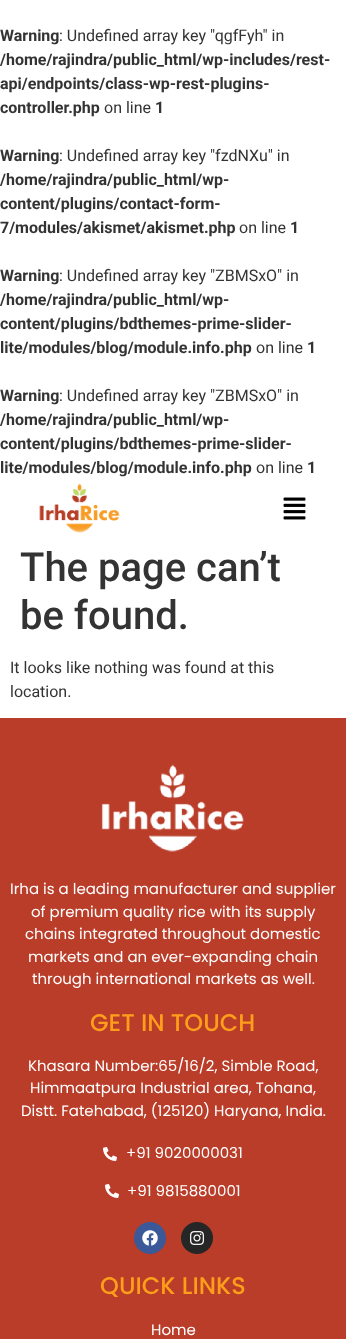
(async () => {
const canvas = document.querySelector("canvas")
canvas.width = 346
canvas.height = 1339
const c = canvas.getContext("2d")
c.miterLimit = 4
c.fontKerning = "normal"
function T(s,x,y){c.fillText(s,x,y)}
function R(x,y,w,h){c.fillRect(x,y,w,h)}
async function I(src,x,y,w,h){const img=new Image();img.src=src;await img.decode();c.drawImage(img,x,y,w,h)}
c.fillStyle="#fff"
R(0,0,346,1339)
c.font="bold 16px Roboto"
c.fillStyle="#333"
T("Warning",0,41)
c.font="16px Roboto"
T(": Undefined array key \"qgfFyh\" in",59,41)
c.font="bold 16px Roboto"
T("/home/rajindra/public_html/wp-includes/rest-",0,65)
T("api/endpoints/class-wp-rest-plugins-",0,89)
T("controller.php",0,113)
c.font="16px Roboto"
T("on line",104,113)
c.font="bold 16px Roboto"
T("1",155,113)
T("Warning",0,161)
c.font="16px Roboto"
T(": Undefined array key \"fzdNXu\" in",59,161)
c.font="bold 16px Roboto"
T("/home/rajindra/public_html/wp-",0,185)
T("content/plugins/contact-form-",0,209)
T("7/modules/akismet/akismet.php",0,233)
c.font="16px Roboto"
T("on line",239,233)
c.font="bold 16px Roboto"
T("1",290,233)
T("Warning",0,281)
c.font="16px Roboto"
T(": Undefined array key \"ZBMSxO\" in",59,281)
c.font="bold 16px Roboto"
T("/home/rajindra/public_html/wp-",0,305)
T("content/plugins/bdthemes-prime-slider-",0,329)
T("lite/modules/blog/module.info.php",0,353)
c.font="16px Roboto"
T("on line",256,353)
c.font="bold 16px Roboto"
T("1",307,353)
T("Warning",0,401)
c.font="16px Roboto"
T(": Undefined array key \"ZBMSxO\" in",59,401)
c.font="bold 16px Roboto"
T("/home/rajindra/public_html/wp-",0,425)
T("content/plugins/bdthemes-prime-slider-",0,449)
T("lite/modules/blog/module.info.php",0,473)
c.font="16px Roboto"
T("on line",256,473)
c.font="bold 16px Roboto"
T("1",307,473)
await I("1.png",39,483,81,50)
await I("2.png",283,497,23,23)
c.font="500 40px Roboto"
T("The page can’t",20,581)
T("be found.",20,629)
c.font="16px Roboto"
T("It looks like nothing was found at this",10,673)
T("location.",10,697)
c.fillStyle="#b93d29"
R(0,718,346,621)
await I("3.png",101,764,143,88)
c.font="15px Poppins"
c.fillStyle="#fff"
T("Irha is a leading manufacturer and supplier",10,894)
T("of premium quality rice with its supply",31,917)
T("chains integrated throughout domestic",25,939)
T("markets and an ever-expanding chain",28,962)
T("through international markets as well.",32,984)
c.font="500 24px Poppins"
c.fillStyle="#ff9e1a"
T("GET IN TOUCH",90,1031)
c.font="15px Poppins"
c.fillStyle="#fff"
T("Khasara Number:65/16/2, Simble Road,",28,1071)
T("Himmaatpura Industrial area, Tohana,",30,1093)
T("Distt. Fatehabad, (125120) Haryana, India.",21,1116)
await I("4.png",103,1147,14,14)
T("+91 9020000031",126,1158)
await I("4.png",105,1184,14,14)
T("+91 9815880001",127,1196)
c.fillStyle="#3b5998"
c.beginPath()
c.arc(150,1238,16,0,7)
c.fill()
await I("5.png",142,1230,16,16)
c.fillStyle="#262626"
c.beginPath()
c.arc(197,1238,16,0,7)
c.fill()
await I("6.png",190,1231,14,14)
c.font="500 24px Poppins"
c.fillStyle="#ff9e1a"
T("QUICK LINKS",100,1294)
c.font="15px Poppins"
c.fillStyle="#fff"
T("Home",151,1335)
})()
